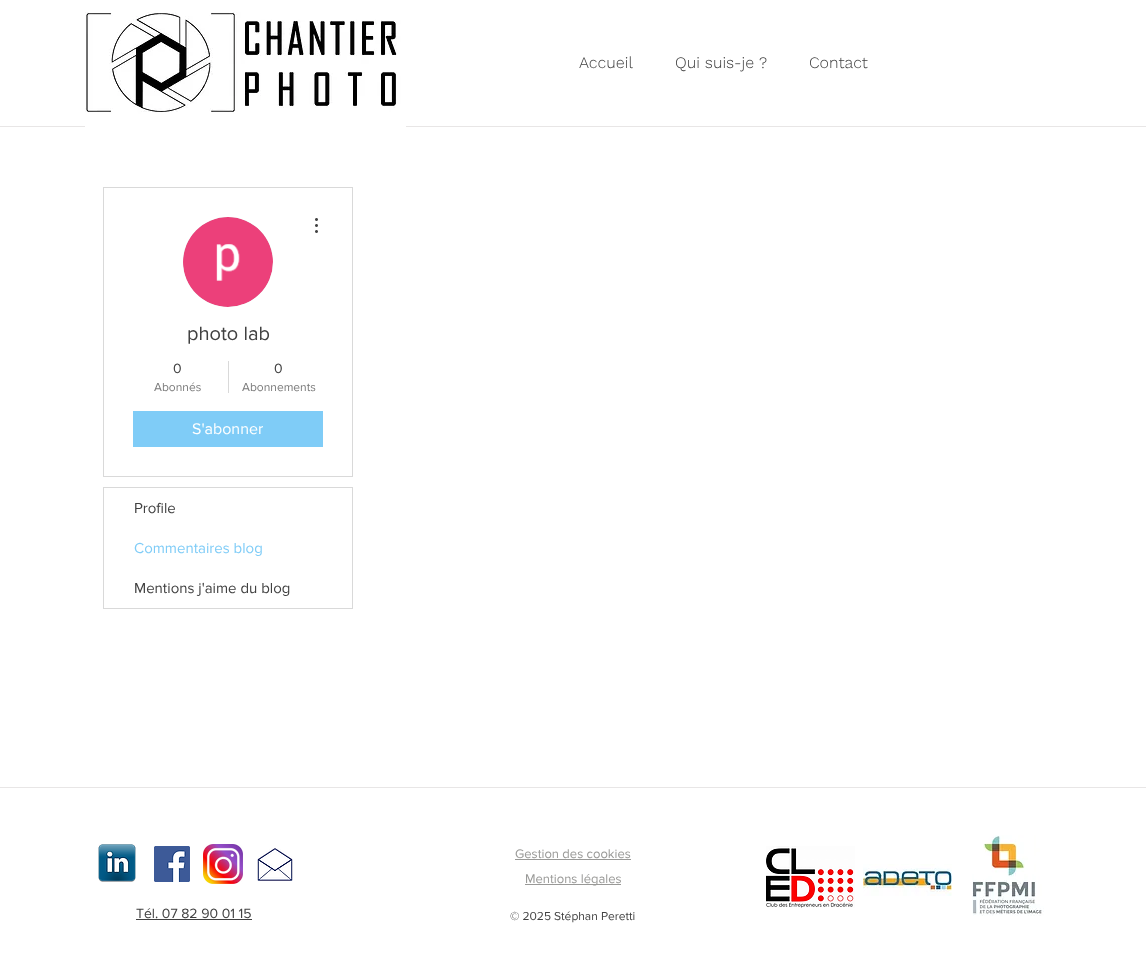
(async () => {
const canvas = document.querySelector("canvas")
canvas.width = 1146
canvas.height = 960
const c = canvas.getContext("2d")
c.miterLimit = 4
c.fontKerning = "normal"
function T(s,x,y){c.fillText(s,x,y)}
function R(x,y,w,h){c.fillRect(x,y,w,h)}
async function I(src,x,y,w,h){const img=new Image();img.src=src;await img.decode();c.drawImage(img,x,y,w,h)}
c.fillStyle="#fff"
R(0,0,1146,960)
c.fillStyle="#e8e6e6"
R(0,126,1146,1)
await I("1.png",85,12,321,115)
c.font="300 16px Work Sans"
c.fillStyle="#414141"
T("Accueil",579,68)
T("Qui suis-je ?",675,68)
T("Contact",809,68)
c.strokeStyle="#d9d9d9"
c.strokeRect(103.5,187.5,249,289)
c.fillStyle="#d8d8d8"
c.beginPath()
c.arc(228,262,45,0,7)
c.fill()
await I("2.png",183,217,90,90)
await I("3.png",315,218,3,15)
c.font="20px 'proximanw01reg'"
c.fillStyle="#414141"
T("photo lab",187,340)
c.font="14px 'proximanw01reg'"
T("0",173,373)
c.font="12px 'proximanw01reg'"
c.fillStyle="#7a7a7a"
T("Abonnés",154,391)
c.fillStyle="#d9d9d9"
R(228,361,1,32)
c.font="14px 'proximanw01reg'"
c.fillStyle="#414141"
T("0",274,373)
c.font="12px 'proximanw01reg'"
c.fillStyle="#7a7a7a"
T("Abonnements",242,391)
c.fillStyle="#7fccf7"
R(133,411,190,36)
c.font="16px 'proximanw01reg'"
c.fillStyle="#fff"
T("S'abonner",192,434)
c.strokeRect(103.5,487.5,249,121)
c.font="15px 'proximanw01reg'"
c.fillStyle="#414141"
T("Profile",134,513)
c.fillStyle="#7fccf7"
T("Commentaires blog",134,553)
c.fillStyle="#414141"
T("Mentions j'aime du blog",134,593)
c.fillStyle="#e8e6e6"
R(0,787,1146,1)
await I("4.png",98,844,38,38)
await I("5.png",154,846,36,36)
await I("6.png",203,844,40,40)
await I("7.png",257,848,36,33)
c.font="13px 'proximanw01reg'"
c.fillStyle="#999997"
T("Gestion des cookies",515,858)
R(515,859,116,1)
await I("8.png",766,846,89,62)
await I("9.png",972,835,72,81)
R(525,884,96,1)
T("Mentions légales",525,883)
await I("10.png",863,864,89,32)
c.font="14px 'proximanw01reg'"
c.fillStyle="#414141"
T("Tél. 07 82 90 01 15",136,918)
R(136,919,116,1)
c.font="12px 'proximanw01reg'"
T("© 2025 Stéphan Peretti",510,920)
})()
